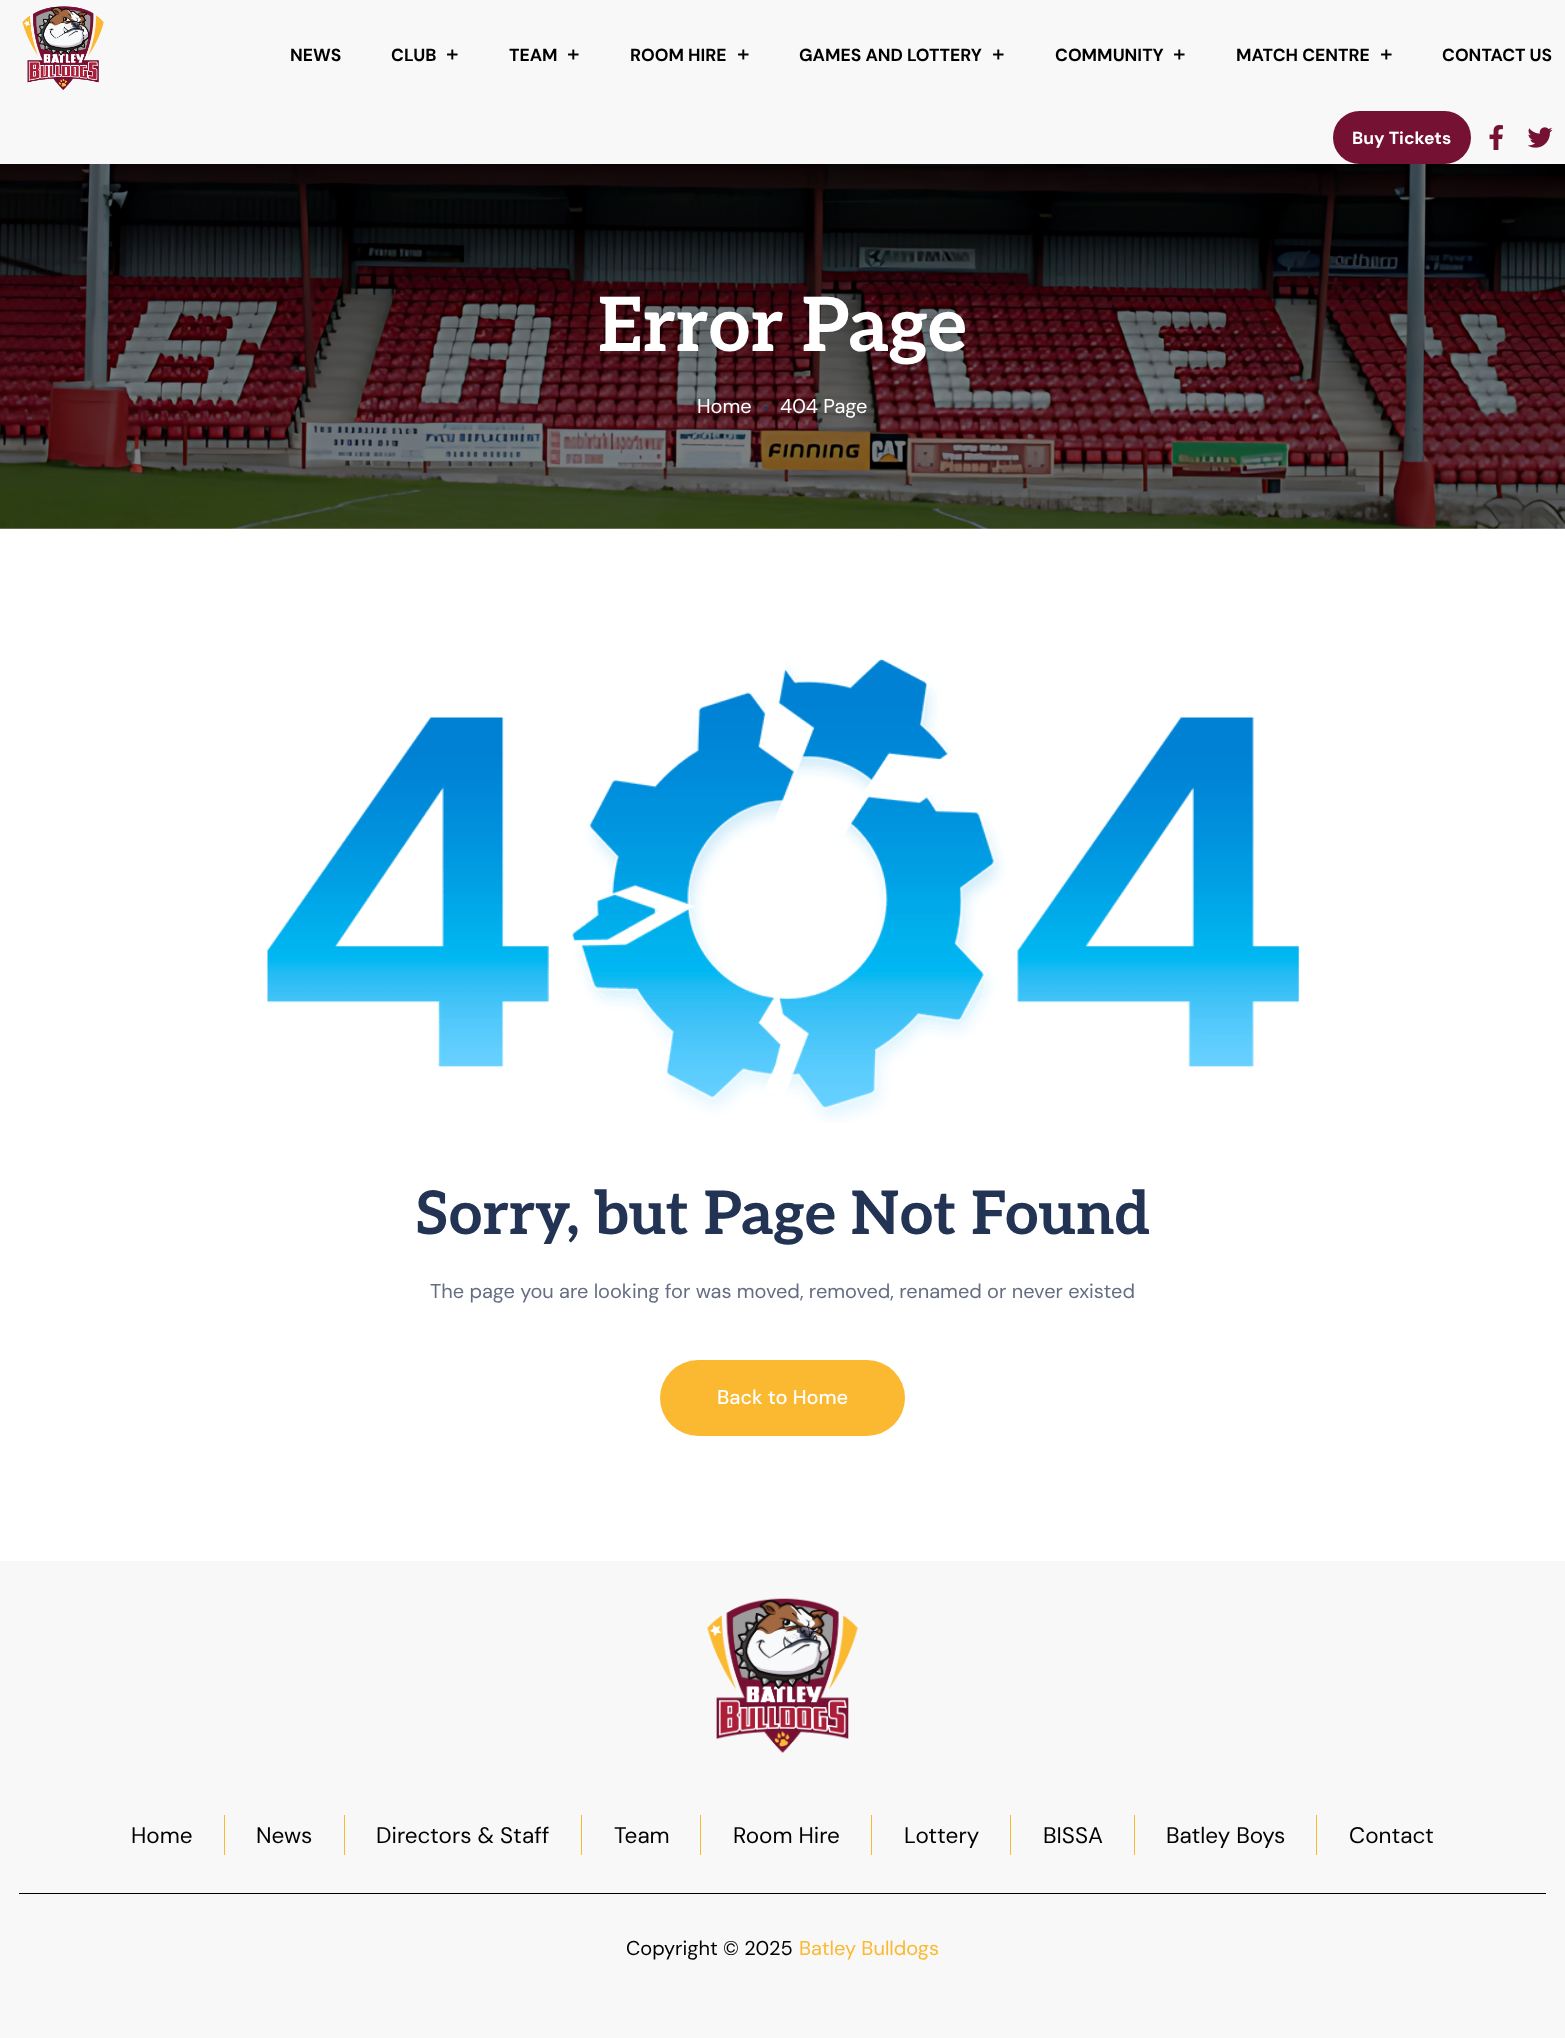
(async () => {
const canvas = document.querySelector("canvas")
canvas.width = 1565
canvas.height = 2038
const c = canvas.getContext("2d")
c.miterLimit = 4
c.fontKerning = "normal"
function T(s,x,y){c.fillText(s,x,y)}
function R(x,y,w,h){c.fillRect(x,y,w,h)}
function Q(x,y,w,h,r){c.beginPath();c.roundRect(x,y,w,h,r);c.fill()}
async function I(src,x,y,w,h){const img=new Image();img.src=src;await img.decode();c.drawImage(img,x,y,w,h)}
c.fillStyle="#fff"
R(0,0,1565,2038)
c.fillStyle="#f8f8f8"
R(0,0,1565,164)
await I("1.png",22,6,82,84)
c.font="bold 17.5px DM Sans"
c.fillStyle="#000"
T("NEWS",290,61)
T("CLUB",391,61)
c.font="500 22.5px DM Sans"
T("+",446,61)
c.font="bold 17.5px DM Sans"
T("TEAM",509,61)
c.font="500 22.5px DM Sans"
T("+",567,61)
c.font="bold 17.5px DM Sans"
T("ROOM HIRE",630,61)
c.font="500 22.5px DM Sans"
T("+",737,61)
c.font="bold 17.5px DM Sans"
T("GAMES AND LOTTERY",799,61)
c.font="500 22.5px DM Sans"
T("+",992,61)
c.font="bold 17.5px DM Sans"
T("COMMUNITY",1055,61)
c.font="500 22.5px DM Sans"
T("+",1173,61)
c.font="bold 17.5px DM Sans"
T("MATCH CENTRE",1236,61)
c.font="500 22.5px DM Sans"
T("+",1380,61)
c.font="bold 17.5px DM Sans"
T("CONTACT US",1442,61)
c.fillStyle="#751233"
Q(1333,111,138,53,26.5)
c.fillStyle="#fff"
T("Buy Tickets",1352,144)
await I("2.png",1489,125,14,25)
await I("3.png",1528,127,25,21)
await I("4.png",0,164,1565,365)
c.font="bold 75px Aleo"
T("Error Page",598,351)
c.font="20px DM Sans"
T("Home",697,413)
c.fillStyle="#223354"
c.beginPath()
c.arc(766,408,2,0,7)
c.fill()
c.fillStyle="#fff"
T("404 Page",780,413)
await I("5.png",267,658,1032,465)
c.font="bold 60px Aleo"
c.fillStyle="#223354"
T("Sorry, but Page Not Found",415,1234)
c.font="20px DM Sans"
c.fillStyle="#646e83"
T("The page you are looking for was moved, removed, renamed or never existed",430,1298)
c.fillStyle="#fab930"
Q(660,1360,245,76,38)
c.font="500 20px DM Sans"
c.fillStyle="#fff"
T("Back to Home",717,1404)
c.fillStyle="#f8f8f8"
R(0,1561,1565,477)
await I("6.png",707,1598,151,155)
c.font="22.5px DM Sans"
c.fillStyle="#000"
T("Home",131,1843)
c.fillStyle="#fab930"
R(224,1815,1,40)
c.fillStyle="#000"
T("News",256,1843)
c.fillStyle="#fab930"
R(344,1815,1,40)
c.fillStyle="#000"
T("Directors & Staff",376,1843)
c.fillStyle="#fab930"
R(581,1815,1,40)
c.fillStyle="#000"
T("Team",614,1843)
c.fillStyle="#fab930"
R(700,1815,1,40)
c.fillStyle="#000"
T("Room Hire",733,1843)
c.fillStyle="#fab930"
R(871,1815,1,40)
c.fillStyle="#000"
T("Lottery",904,1843)
c.fillStyle="#fab930"
R(1010,1815,1,40)
c.fillStyle="#000"
T("BISSA",1043,1843)
c.fillStyle="#fab930"
R(1134,1815,1,40)
c.fillStyle="#000"
T("Batley Boys",1166,1843)
c.fillStyle="#fab930"
R(1316,1815,1,40)
c.fillStyle="#000"
T("Contact",1349,1843)
R(19,1893,1527,1)
c.font="20px DM Sans"
T("Copyright © 2025",626,1955)
c.fillStyle="#fab930"
T("Batley Bulldogs",799,1955)
})()
